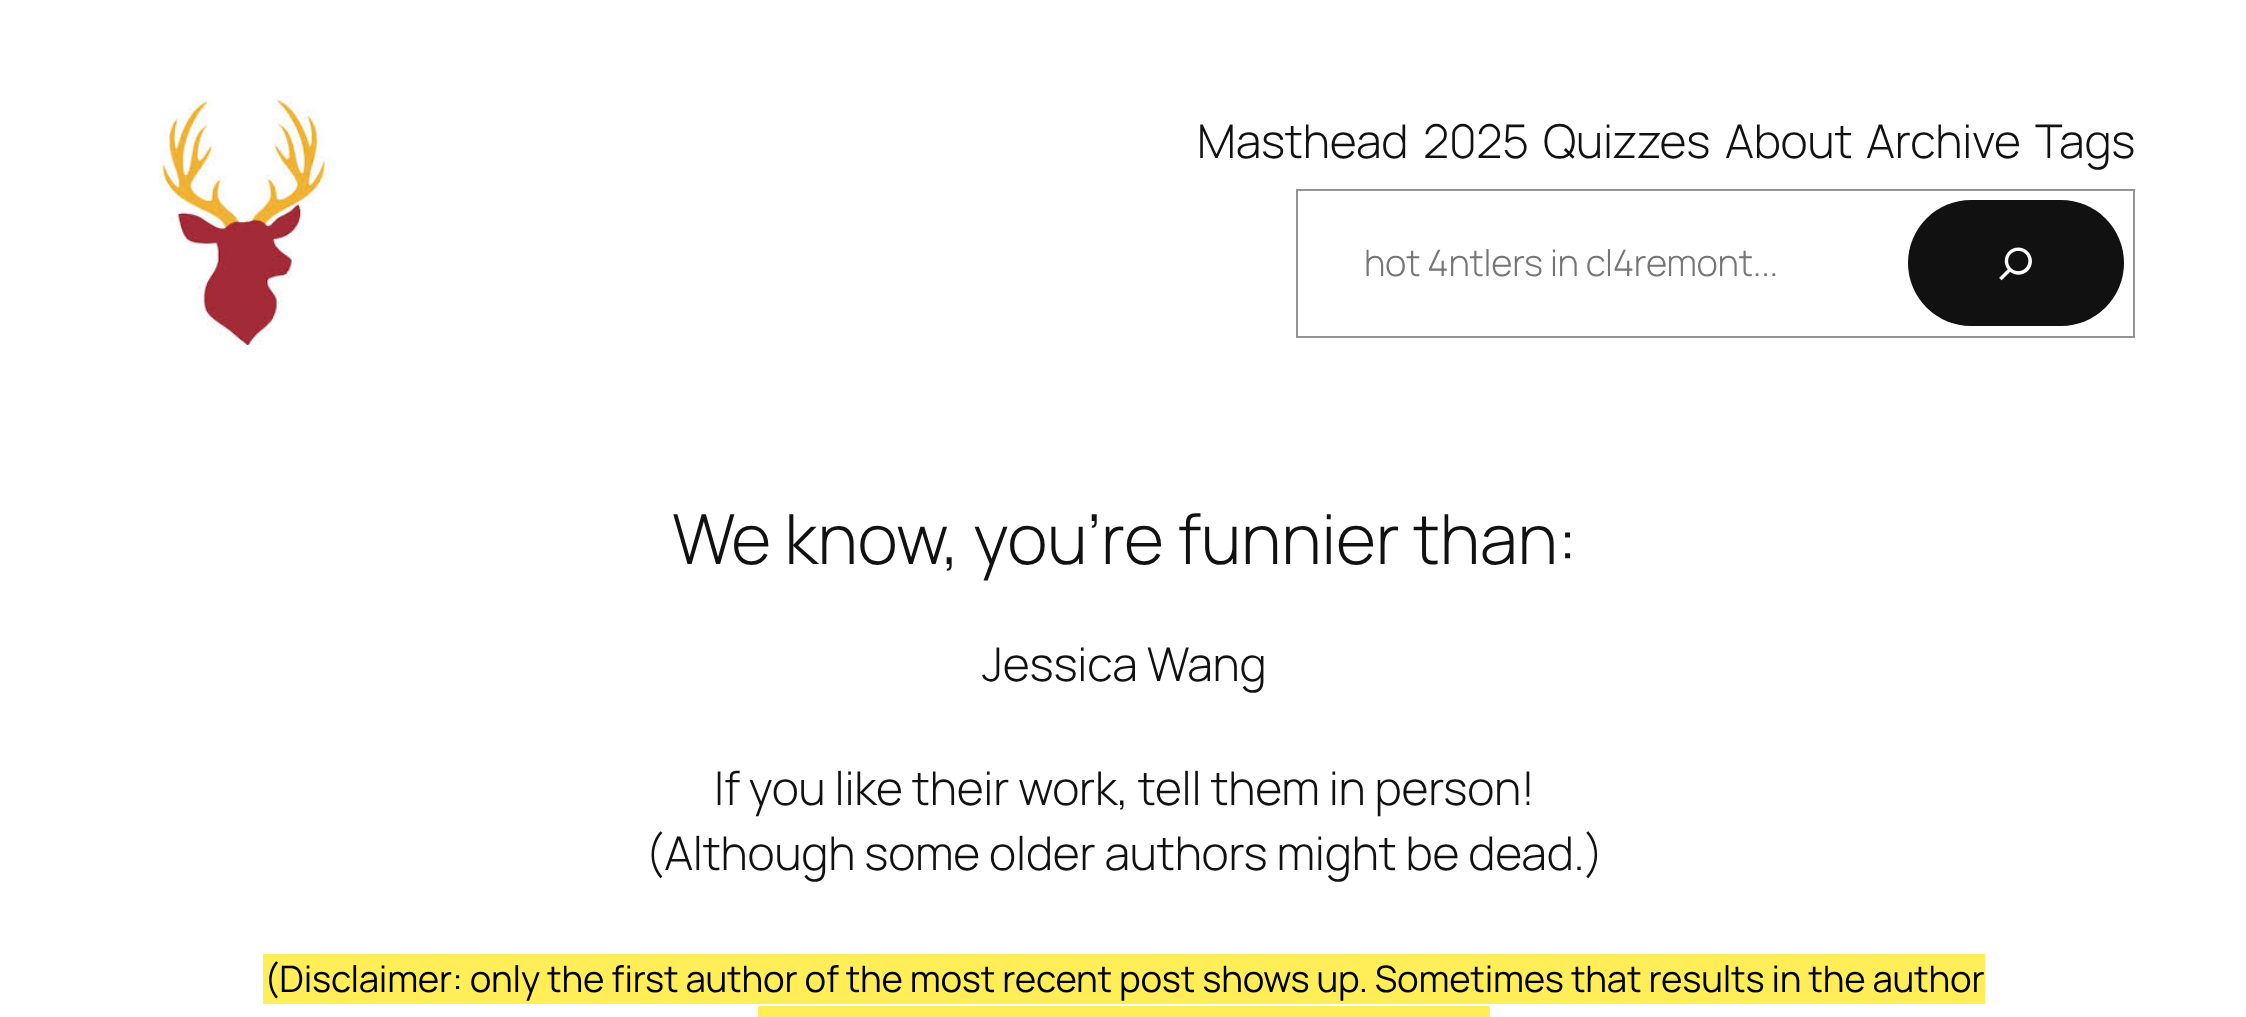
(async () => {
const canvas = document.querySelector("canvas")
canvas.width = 2246
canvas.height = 1017
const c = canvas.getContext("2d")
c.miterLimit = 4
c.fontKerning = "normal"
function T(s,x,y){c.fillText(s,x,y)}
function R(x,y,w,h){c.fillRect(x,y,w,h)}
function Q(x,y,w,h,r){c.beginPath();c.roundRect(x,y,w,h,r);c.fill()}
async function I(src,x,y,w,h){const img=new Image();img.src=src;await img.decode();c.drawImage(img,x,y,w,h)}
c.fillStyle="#fff"
R(0,0,2246,1017)
await I("1.png",159,99,171,246)
c.letterSpacing="-0.23px"
c.font="300 46.5px Manrope"
c.fillStyle="#111"
T("Masthead",1197,158)
T("2025",1423,158)
T("Quizzes",1543,158)
T("About",1725,158)
T("Archive",1866,158)
T("Tags",2035,158)
c.strokeStyle="#949494"
c.lineWidth=2
c.strokeRect(1297,190,837,147)
c.font="300 36.6px Manrope"
c.fillStyle="#757575"
T("hot 4ntlers in cl4remont...",1364,276)
c.fillStyle="#111"
Q(1908,200,216,126,63)
await I("2.png",1999,247,33,34)
c.font="300 69px Manrope"
T("We know, you’re funnier than:",672,564)
c.font="300 46.5px Manrope"
T("Jessica Wang",982,681)
T("If you like their work, tell them in person!",714,805)
T("(Although some older authors might be dead.)",645,870)
c.fillStyle="#ffee58"
R(263,954,1722,50)
c.font="36.6px Manrope"
c.fillStyle="#000"
T("(Disclaimer: only the first author of the most recent post shows up. Sometimes that results in the author",264,992)
c.fillStyle="#ffee58"
R(758,1006,732,11)
})()
